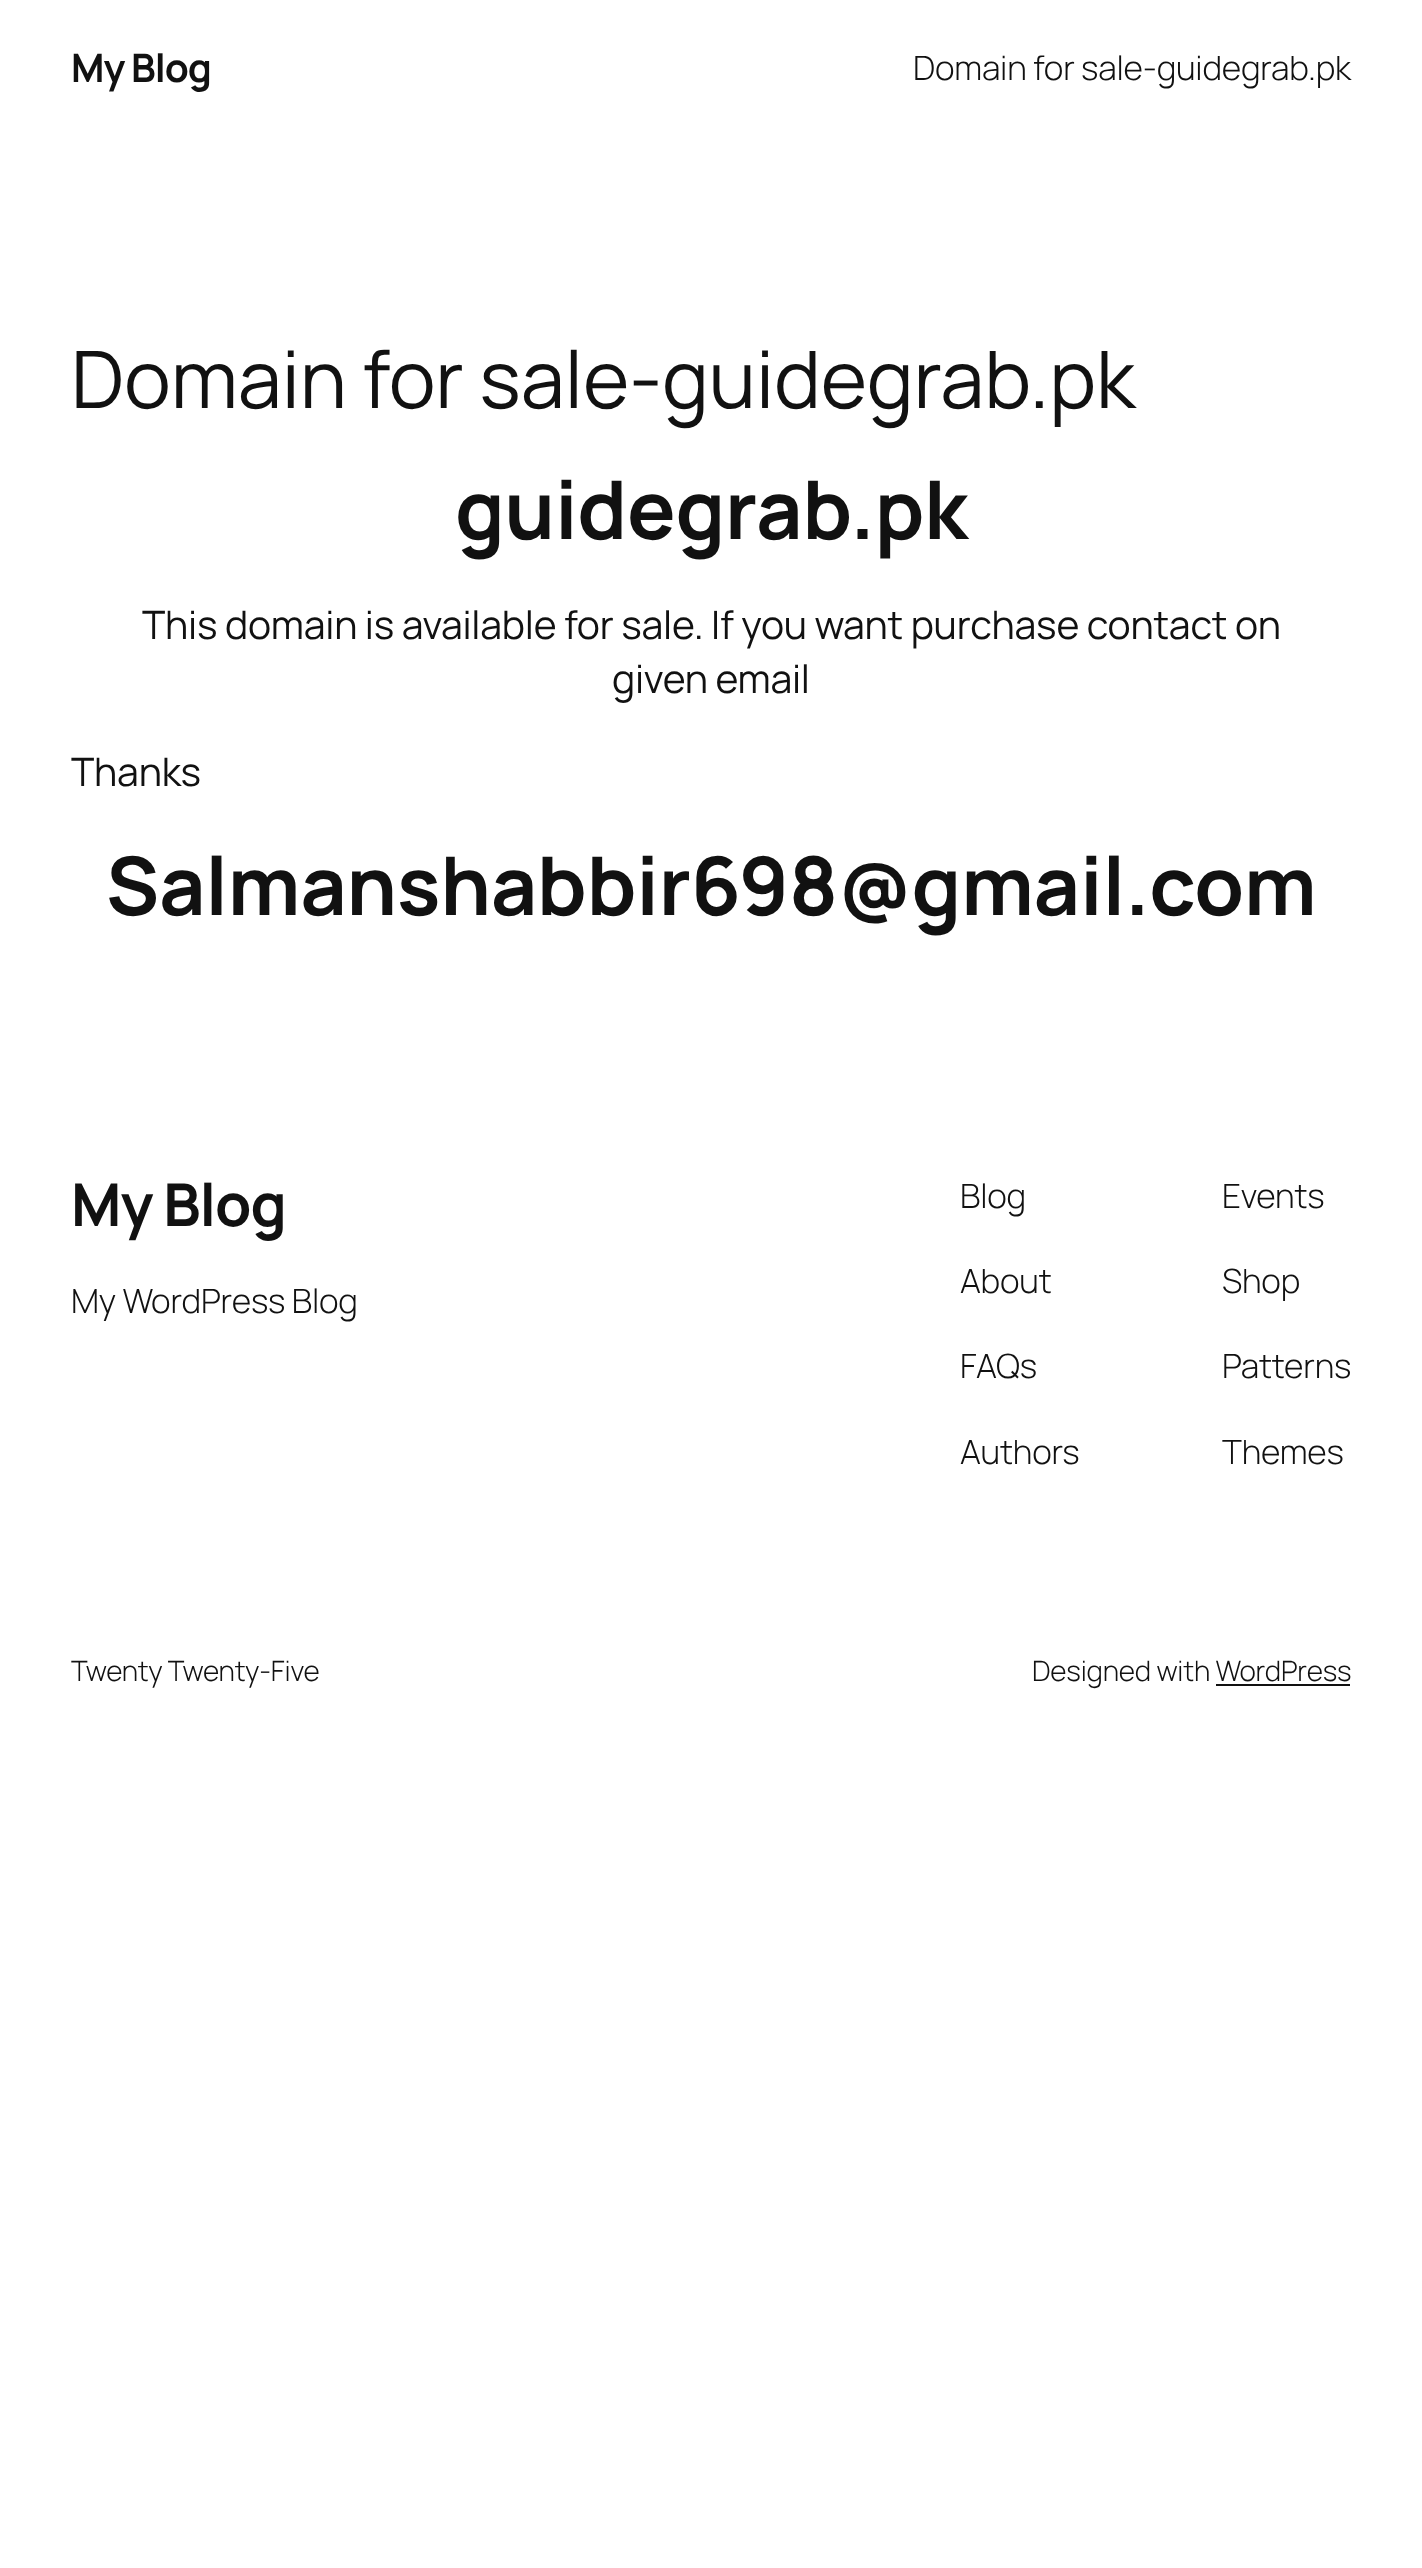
(async () => {
const canvas = document.querySelector("canvas")
canvas.width = 1422
canvas.height = 2568
const c = canvas.getContext("2d")
c.miterLimit = 4
c.fontKerning = "normal"
function T(s,x,y){c.fillText(s,x,y)}
function R(x,y,w,h){c.fillRect(x,y,w,h)}
c.fillStyle="#fff"
R(0,0,1422,2568)
c.letterSpacing="-1px"
c.font="bold 39.1px Manrope"
c.fillStyle="#111"
T("My Blog",71,82)
c.letterSpacing="-0.2px"
c.font="300 33.5px Manrope"
T("Domain for sale-guidegrab.pk",913,80)
c.font="79.25px Manrope"
T("Domain for sale-guidegrab.pk",71,408)
c.font="bold 80.8px Manrope"
T("guidegrab.pk",455,539)
c.font="39.1px Manrope"
T("This domain is available for sale. If you want purchase contact on",142,639)
T("given email",612,693)
T("Thanks",71,786)
c.font="bold 80.8px Manrope"
T("Salmanshabbir698@gmail.com",106,915)
c.letterSpacing="-1px"
c.font="bold 59px Manrope"
T("My Blog",71,1226)
c.letterSpacing="-0.2px"
c.font="300 33.5px Manrope"
T("My WordPress Blog",71,1313)
T("Blog",960,1208)
T("About",960,1293)
T("FAQs",960,1378)
T("Authors",960,1464)
T("Events",1222,1208)
T("Shop",1222,1293)
T("Patterns",1222,1378)
T("Themes",1222,1464)
c.font="300 28px Manrope"
T("Twenty Twenty-Five",71,1681)
T("Designed with WordPress",1032,1681)
R(1216,1684,134,2)
})()
